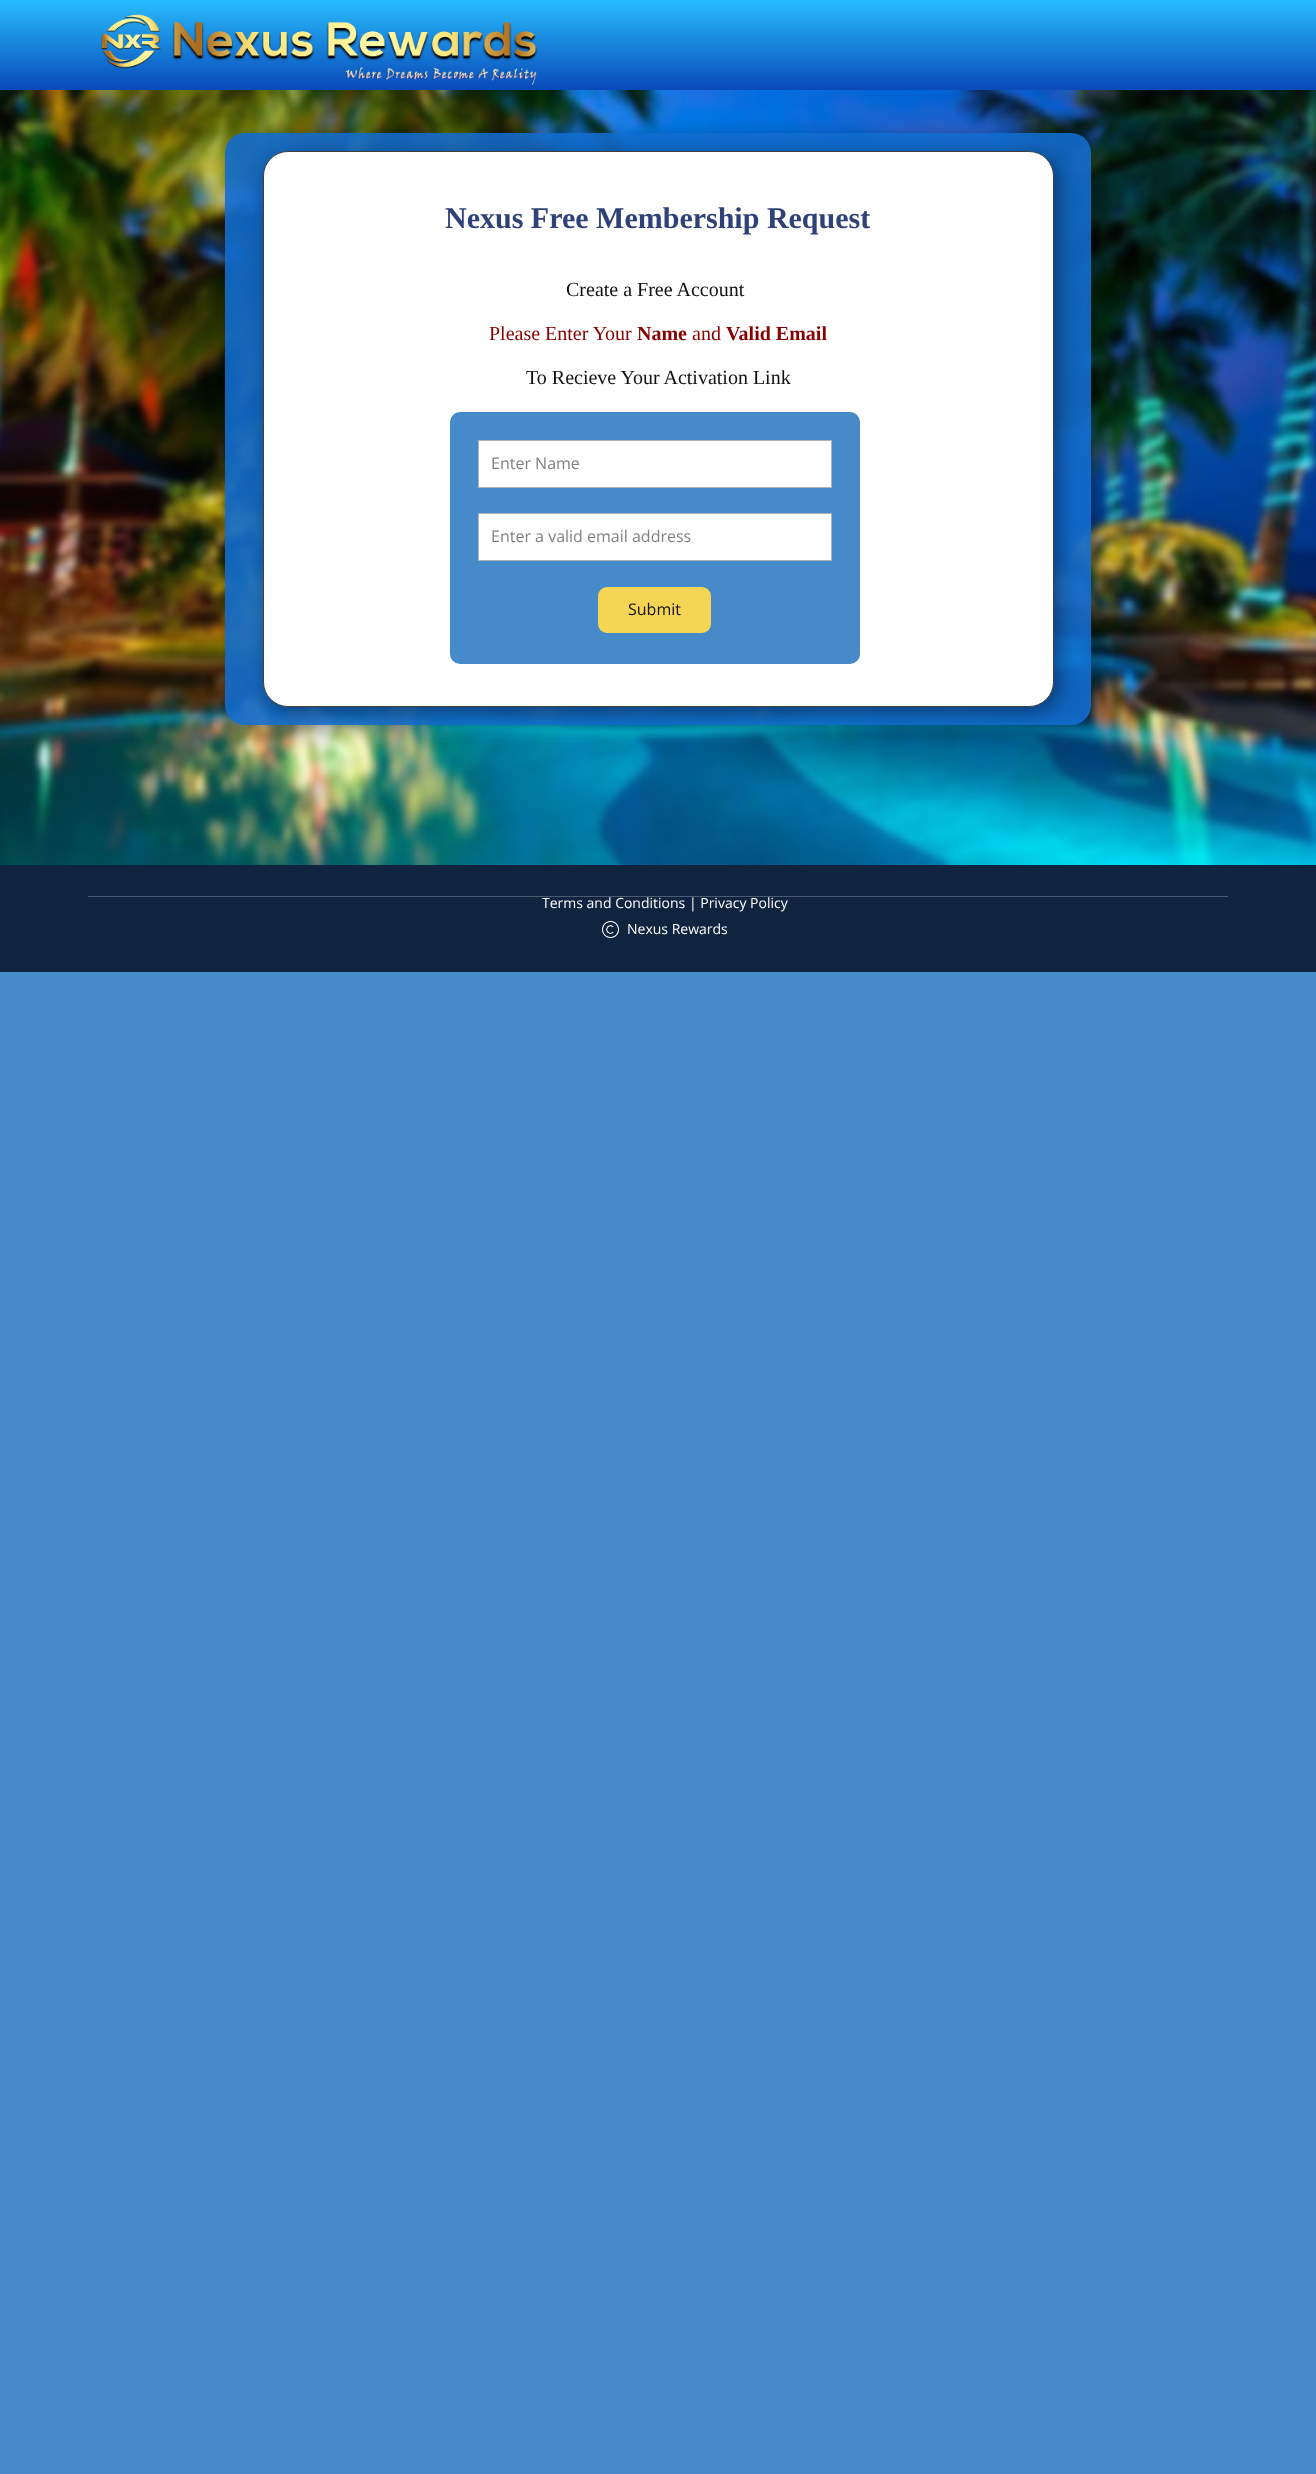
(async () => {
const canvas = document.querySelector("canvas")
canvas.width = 1316
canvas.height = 2474
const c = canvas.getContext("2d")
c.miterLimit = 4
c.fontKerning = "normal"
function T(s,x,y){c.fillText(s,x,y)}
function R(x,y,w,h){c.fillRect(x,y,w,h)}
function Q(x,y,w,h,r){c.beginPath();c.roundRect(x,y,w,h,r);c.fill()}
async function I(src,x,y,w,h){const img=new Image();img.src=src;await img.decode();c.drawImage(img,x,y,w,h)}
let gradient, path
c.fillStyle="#478ac9"
R(0,0,1316,2474)
gradient = c.createLinearGradient(658,0,658,90)
gradient.addColorStop(0,"#28bcfd")
gradient.addColorStop(1,"#094ab9")
c.fillStyle = gradient
R(0,0,1316,90)
await I("1.png",101,14,437,72)
await I("2.png",0,90,1316,775)
c.save()
path = new Path2D("M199 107h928v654h-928zm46 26h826c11 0 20 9 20 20v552c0 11-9 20-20 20h-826c-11 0-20-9-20-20v-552c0-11 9-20 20-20z")
c.clip(path,"evenodd")
c.fillStyle="#00000066"
c.filter="blur(10px)"
c.beginPath()
c.roundRect(230,138,866,592,20)
c.fill()
c.filter="none"
c.restore()
c.fillStyle="#126bcde6"
Q(225,133,866,592,20)
c.fillStyle="#00000066"
c.filter="blur(10px)"
c.beginPath()
c.roundRect(268,156,791,556,25)
c.fill()
c.filter="none"
c.fillStyle="#fff"
c.beginPath()
c.roundRect(263.5,151.5,790,555,24.5)
c.fill()
c.strokeStyle="#404040"
c.stroke()
c.font="bold 30px Liberation Serif"
c.fillStyle="#304178"
T("Nexus Free Membership Request",445,228)
c.font="20px Liberation Serif"
c.fillStyle="#111"
T("Create a Free Account",566,296)
c.fillStyle="#870101"
T("Please Enter Your",489,340)
c.font="bold 20px Liberation Serif"
T("Name",637,340)
c.font="20px Liberation Serif"
T("and",692,340)
c.font="bold 20px Liberation Serif"
T("Valid Email",726,340)
c.font="20px Liberation Serif"
c.fillStyle="#111"
T("To Recieve Your Activation Link",526,384)
c.fillStyle="#478ac9"
Q(450,412,410,252,10)
c.fillStyle="#fff"
c.beginPath()
c.rect(478.5,440.5,353,47)
c.fill()
c.strokeStyle="#b3b3b3"
c.stroke()
c.font="16px Open Sans"
c.fillStyle="#808080"
T("Enter Name",491,469)
c.fillStyle="#fff"
c.beginPath()
c.rect(478.5,513.5,353,47)
c.fill()
c.stroke()
c.fillStyle="#808080"
T("Enter a valid email address",491,542)
c.fillStyle="#f5d654"
Q(598,587,113,46,9)
c.fillStyle="#111"
T("Submit",628,615)
c.fillStyle="#102440"
R(0,865,1316,107)
c.fillStyle="#4c5b70"
R(88,896,1140,1)
c.font="14px Open Sans"
c.fillStyle="#fff"
T("Terms and Conditions | Privacy Policy",542,908)
await I("3.png",602,921,17,17)
T("Nexus Rewards",627,934)
})()
